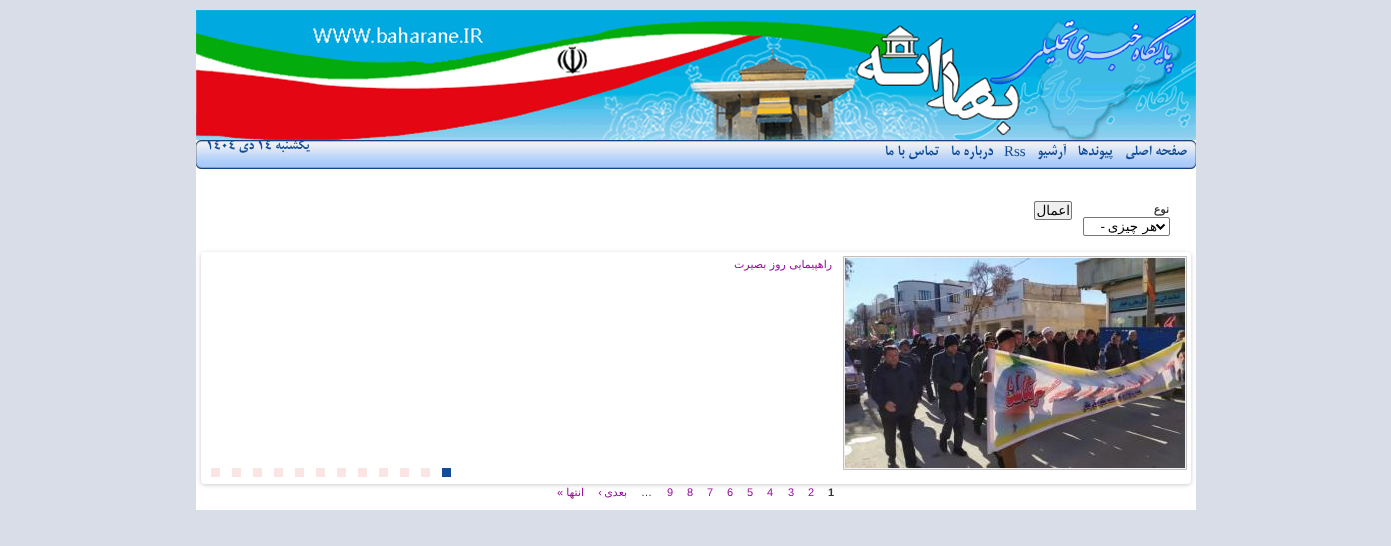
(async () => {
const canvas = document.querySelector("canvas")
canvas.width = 1391
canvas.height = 546
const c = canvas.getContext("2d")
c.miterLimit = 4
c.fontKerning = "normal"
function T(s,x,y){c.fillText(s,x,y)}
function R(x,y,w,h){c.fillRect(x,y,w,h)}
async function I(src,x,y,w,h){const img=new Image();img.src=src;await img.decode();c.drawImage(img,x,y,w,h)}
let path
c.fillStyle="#d8dde8"
R(0,0,1391,546)
c.fillStyle="#fff"
R(196,10,1000,500)
await I("2.png",196,140,1000,29)
c.direction="rtl"
c.font="bold 14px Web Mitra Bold"
c.fillStyle="#124b98"
T("يكشنبه",310,149)
c.direction="ltr"
T("14",257,149)
T("1404",206,149)
await I("1.png",196,10,1000,130)
c.direction="rtl"
c.font="bold 15px Web Mitra Bold"
T("صفحه اصلی",1187,155)
T("پیوندها",1113,155)
T("آرشیو",1066,155)
c.direction="ltr"
c.font="15px Liberation Serif"
T("Rss",1004,156)
c.direction="rtl"
c.font="bold 15px Web Mitra Bold"
T("درباره ما",993,155)
T("تماس با ما",939,155)
c.font="bold 14px Web Mitra Bold"
T("دى",254,149)
c.font="bold 11px DejaVu Sans"
c.fillStyle="#333"
T("نوع",1169,213)
c.beginPath()
c.roundRect(1083.5,217.5,86,18,1.5)
c.strokeStyle="#767676"
c.stroke()
path = new Path2D("M1156.5 224.5l4 4l4-4")
c.strokeStyle="#000"
c.lineWidth=2
c.stroke(path)
c.font="13.5px DejaVu Sans"
c.fillStyle="#000"
T("هر چیزی",1157,231)
c.font="13.5px Liberation Sans"
T("-",1105,231)
c.fillStyle="#efefef"
c.beginPath()
c.roundRect(1034.5,201.5,37,18,1.5)
c.fill()
c.strokeStyle="#767676"
c.lineWidth=1
c.stroke()
c.font="13.5px DejaVu Sans"
c.fillStyle="#000"
T("اعمال",1070,215)
c.fillStyle="#00000033"
c.filter="blur(2px)"
c.beginPath()
c.roundRect(201,253,990,232,4)
c.fill()
c.filter="none"
c.fillStyle="#fff"
c.beginPath()
c.roundRect(203,254,986,228,2)
c.fill()
c.strokeStyle="#fff"
c.lineWidth=4
c.stroke()
c.fillStyle="#f3f1f4"
c.beginPath()
c.rect(843.5,256.5,343,213)
c.fill()
c.strokeStyle="#c0c0c0"
c.lineWidth=1
c.stroke()
await I("3.png",845,258,340,210)
c.font="11px DejaVu Sans"
c.fillStyle="#970d9b"
T("راهپیمایی روز بصیرت",832,268)
c.fillStyle="#124b98"
R(442,468,9,9)
c.fillStyle="#fae4e4"
R(421,468,9,9)
R(400,468,9,9)
R(379,468,9,9)
R(358,468,9,9)
R(337,468,9,9)
R(316,468,9,9)
R(295,468,9,9)
R(274,468,9,9)
R(253,468,9,9)
R(232,468,9,9)
R(211,468,9,9)
c.direction="ltr"
c.font="bold 11px Liberation Sans"
c.fillStyle="#333"
T("1",828,496)
c.font="11px Liberation Sans"
c.fillStyle="#970d9b"
T("2",808,496)
T("3",788,496)
T("4",767,496)
T("5",747,496)
T("6",727,496)
T("7",707,496)
T("8",687,496)
T("9",667,496)
c.fillStyle="#333"
T("…",641,496)
c.direction="rtl"
c.font="11px DejaVu Sans"
c.fillStyle="#970d9b"
T("بعدی",627,496)
c.font="11px Liberation Sans"
T("›",602,496)
c.font="11px DejaVu Sans"
T("انتها",584,496)
c.font="11px Liberation Sans"
T("»",563,496)
})()
